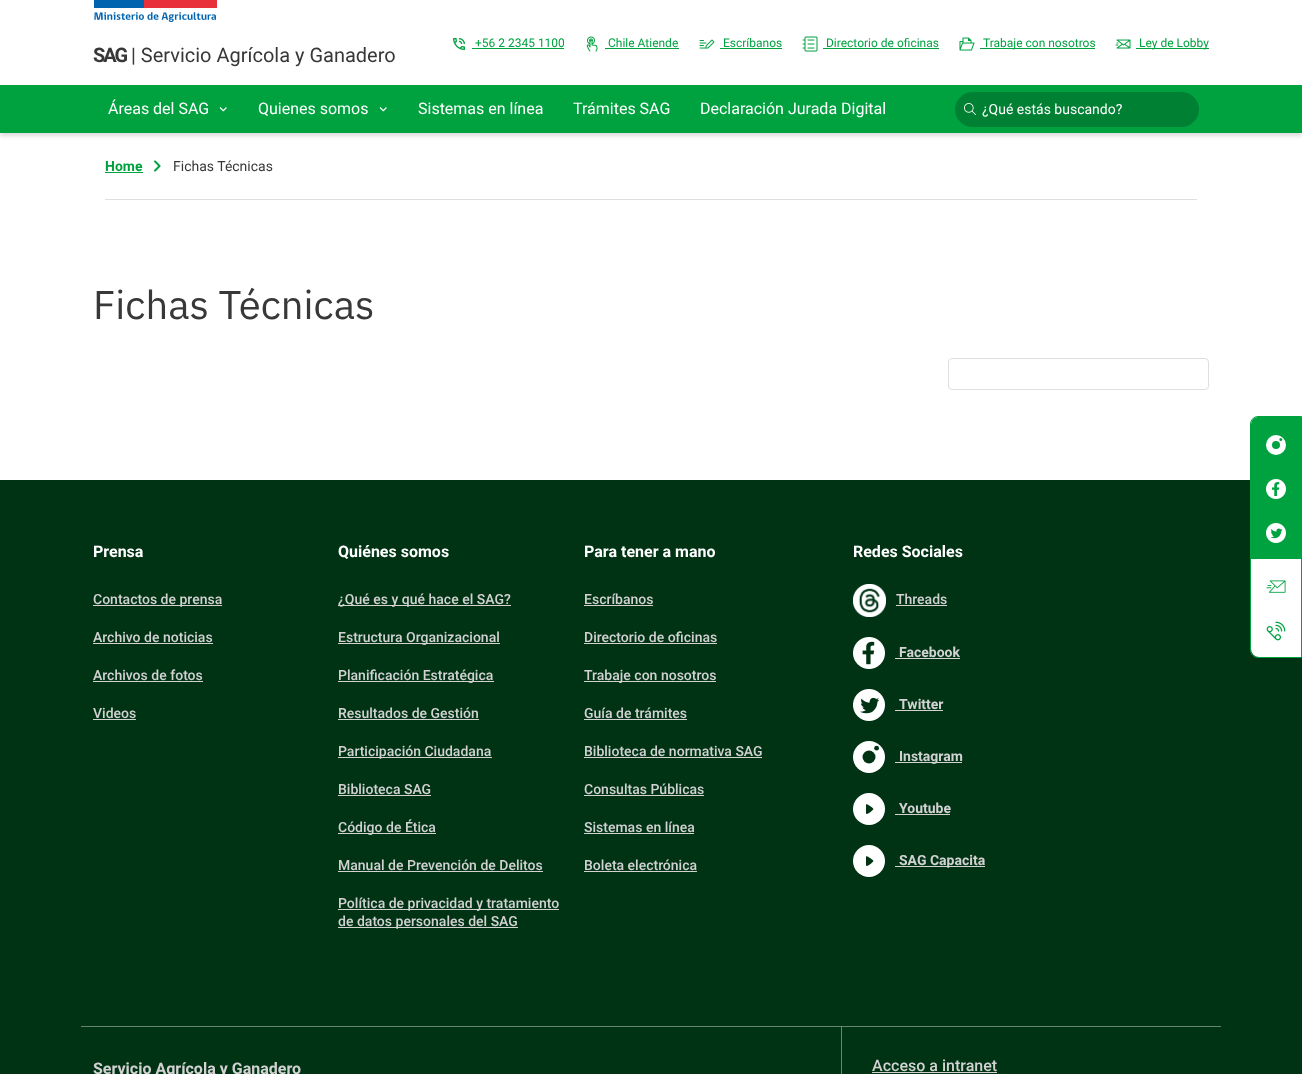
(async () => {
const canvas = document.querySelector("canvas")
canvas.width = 1302
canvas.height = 1074
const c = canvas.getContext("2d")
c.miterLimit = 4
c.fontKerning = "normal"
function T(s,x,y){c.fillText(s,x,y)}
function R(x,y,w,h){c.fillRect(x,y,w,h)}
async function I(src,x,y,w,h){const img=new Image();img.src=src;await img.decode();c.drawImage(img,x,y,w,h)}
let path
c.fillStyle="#fff"
R(0,0,1302,1074)
await I("1.png",453,38,12,12)
c.font="12px Roboto"
c.fillStyle="#00a240"
T("+56 2 2345 1100",475,47)
R(472,48,92,1)
await I("2.png",586,36,12,16)
T("Chile Atiende",608,47)
R(605,48,74,1)
await I("3.png",699,39,16,10)
T("Escríbanos",723,47)
R(720,48,62,1)
await I("4.png",802,36,16,16)
T("Directorio de oficinas",826,47)
R(823,48,116,1)
await I("5.png",959,37,16,14)
R(980,48,115,1)
T("Trabaje con nosotros",983,47)
await I("6.png",1115,39,16,10)
R(1136,48,73,1)
T("Ley de Lobby",1139,47)
await I("7.png",94,0,123,22)
c.letterSpacing="-2px"
c.font="bold 20px Roboto"
c.fillStyle="#383838"
T("SAG",93,62)
c.letterSpacing="0px"
c.font="20px Roboto"
T("| Servicio Agrícola y Ganadero",131,62)
c.fillStyle="#003314"
R(0,480,1302,594)
c.beginPath()
c.roundRect(1250.5,416.5,51,241,[7.5,0,0,7.5])
c.strokeStyle="#00a240"
c.stroke()
c.fillStyle="#00a240"
c.beginPath()
c.roundRect(1251,417,50,142,[7,0,0,0])
c.fill()
c.fillStyle="#fff"
c.beginPath()
c.arc(1276,445,10,0,7)
c.fill()
c.fillStyle="#00a240"
c.beginPath()
c.arc(1280.8,439.5,1.5,0,7)
c.fill()
c.beginPath()
c.arc(1276,445,4,0,7)
c.fill()
await I("8.png",1266,479,20,20)
await I("9.png",1266,523,20,20)
c.fillStyle="#fff"
c.beginPath()
c.roundRect(1251,559,50,98,[0,0,0,8])
c.fill()
await I("10.png",1266,580,20,13)
await I("11.png",1266,621,20,20)
c.fillStyle="#00000026"
c.filter="blur(2px)"
c.beginPath()
c.rect(0,88,1302,48)
c.fill()
c.filter="none"
c.fillStyle="#00a240"
R(0,85,1302,48)
c.font="16px Roboto"
c.fillStyle="#fff"
T("Áreas del SAG",108,114)
await I("12.png",219,107,8,5)
T("Quienes somos",258,114)
await I("12.png",379,107,8,5)
T("Sistemas en línea",418,114)
T("Trámites SAG",573,114)
T("Declaración Jurada Digital",700,114)
c.fillStyle="#008033"
c.beginPath()
c.roundRect(955.5,92.5,243,34,17)
c.fill()
c.strokeStyle="#008033"
c.stroke()
await I("13.png",964,103,12,12)
c.font="14px Roboto"
c.fillStyle="#fff"
T("¿Qué estás buscando?",982,114)
c.fillStyle="#dfdfdf"
R(105,199,1092,1)
c.font="bold 14px Roboto"
c.fillStyle="#00a240"
T("Home",105,171)
R(105,172,38,1)
await I("14.png",154,160,7,12)
c.font="14px Roboto"
c.fillStyle="#383838"
T("Fichas Técnicas",173,171)
c.font="40px IBM Plex Sans"
T("Fichas Técnicas",93,319)
c.beginPath()
c.roundRect(948.5,358.5,260,31,3.5)
c.strokeStyle="#dfdfdf"
c.stroke()
c.font="bold 16px Roboto"
c.fillStyle="#fff"
T("Prensa",93,557)
c.fillStyle="#d2d2d2"
R(93,605,129,1)
c.font="500 14px Roboto"
T("Contactos de prensa",93,604)
T("Archivo de noticias",93,642)
R(93,643,120,1)
T("Archivos de fotos",93,680)
R(93,681,110,1)
T("Videos",93,718)
R(93,719,43,1)
c.font="bold 16px Roboto"
c.fillStyle="#fff"
T("Quiénes somos",338,557)
c.fillStyle="#d2d2d2"
R(338,605,173,1)
c.font="500 14px Roboto"
T("¿Qué es y qué hace el SAG?",338,604)
R(338,643,162,1)
T("Estructura Organizacional",338,642)
R(338,681,156,1)
T("Planificación Estratégica",338,680)
T("Resultados de Gestión",338,718)
R(338,719,141,1)
R(338,757,154,1)
T("Participación Ciudadana",338,756)
T("Biblioteca SAG",338,794)
R(338,795,93,1)
R(338,833,98,1)
T("Código de Ética",338,832)
T("Manual de Prevención de Delitos",338,870)
R(338,871,205,1)
R(338,909,221,1)
T("Política de privacidad y tratamiento",338,908)
R(338,927,180,1)
T("de datos personales del SAG",338,926)
c.font="bold 16px Roboto"
c.fillStyle="#fff"
T("Para tener a mano",584,557)
c.font="500 14px Roboto"
c.fillStyle="#d2d2d2"
T("Escríbanos",584,604)
R(584,605,69,1)
T("Directorio de oficinas",584,642)
R(584,643,133,1)
R(584,681,132,1)
T("Trabaje con nosotros",584,680)
T("Guía de trámites",584,718)
R(584,719,103,1)
T("Biblioteca de normativa SAG",584,756)
R(584,757,178,1)
T("Consultas Públicas",584,794)
R(584,795,120,1)
T("Sistemas en línea",584,832)
R(584,833,110,1)
T("Boleta electrónica",584,870)
R(584,871,113,1)
c.font="bold 16px Roboto"
c.fillStyle="#fff"
T("Redes Sociales",853,557)
await I("15.png",853,584,33,33)
c.font="500 14px Roboto"
c.fillStyle="#d2d2d2"
T("Threads",896,604)
R(896,605,51,1)
await I("16.png",853,637,32,32)
c.font="bold 14px Roboto"
T("Facebook",899,657)
R(895,658,65,1)
await I("17.png",853,689,32,32)
T("Twitter",899,709)
R(895,710,48,1)
R(895,762,67,1)
T("Instagram",899,761)
c.fillStyle="#fff"
c.beginPath()
c.arc(869,757,16,0,7)
c.fill()
c.fillStyle="#003314"
c.beginPath()
c.arc(869,757,6.5,0,7)
c.fill()
c.beginPath()
c.arc(876.6,748.2,2.4,0,7)
c.fill()
c.fillStyle="#d2d2d2"
T("Youtube",899,813)
c.fillStyle="#fff"
c.beginPath()
c.arc(869,809,16,0,7)
c.fill()
c.fillStyle="#003314"
path = new Path2D("M866 813v-8.5c1-1.5 7.5 4 7.5 4.5c0 .5-7.5 7.5-7.5 4z")
c.fill(path)
c.fillStyle="#d2d2d2"
R(895,814,55,1)
c.fillStyle="#fff"
c.beginPath()
c.arc(869,861,16,0,7)
c.fill()
c.fillStyle="#d2d2d2"
R(895,866,90,1)
T("SAG Capacita",899,865)
c.fillStyle="#003314"
path = new Path2D("M866 865v-8.5c1-1.5 7.5 4 7.5 4.5c0 .5-7.5 7.5-7.5 4z")
c.fill(path)
c.fillStyle="#668572"
R(81,1026,1140,1)
c.font="bold 16px Roboto"
c.fillStyle="#d2d2d2"
T("Servicio Agrícola y Ganadero",93,1074)
c.fillStyle="#668572"
R(841,1027,1,47)
c.font="500 16px Roboto"
c.fillStyle="#d2d2d2"
T("Acceso a intranet",872,1071)
R(872,1072,125,1)
})()
